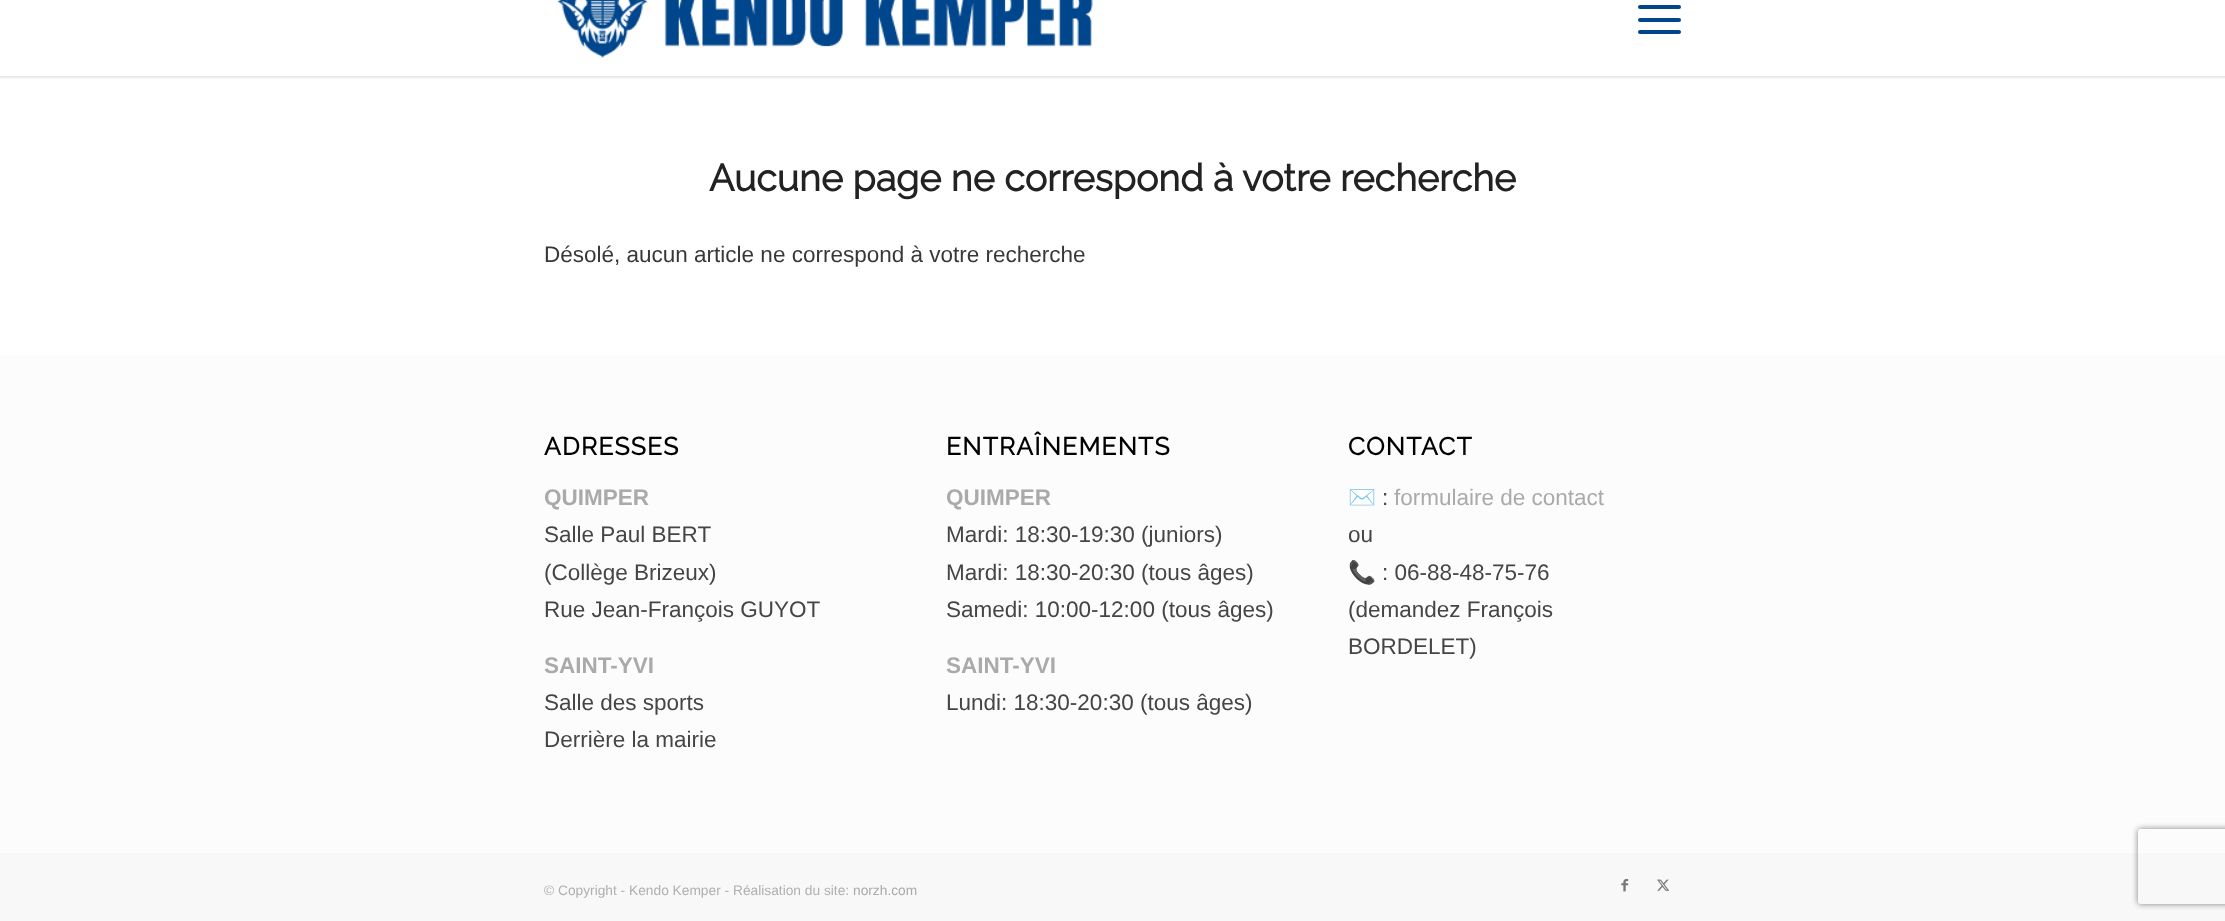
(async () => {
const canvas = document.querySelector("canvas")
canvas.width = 2225
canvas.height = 921
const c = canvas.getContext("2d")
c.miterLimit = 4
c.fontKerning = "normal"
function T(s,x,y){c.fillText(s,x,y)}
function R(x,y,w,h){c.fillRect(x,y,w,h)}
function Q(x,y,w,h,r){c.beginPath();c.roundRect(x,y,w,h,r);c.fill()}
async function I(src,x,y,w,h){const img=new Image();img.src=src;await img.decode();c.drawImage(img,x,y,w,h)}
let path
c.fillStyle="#fff"
R(0,0,2225,921)
c.save()
c.beginPath()
c.rect(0,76,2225,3)
c.clip()
c.fillStyle="#0000001a"
c.filter="blur(1px)"
c.beginPath()
c.rect(-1,-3,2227,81)
c.fill()
c.filter="none"
c.restore()
await I("1.png",557,0,536,58)
c.fillStyle="#01458c"
Q(1638,18,43,4,2)
Q(1638,5,43,4,2)
Q(1638,30,43,4,2)
c.font="bold 37.5px Raleway"
c.fillStyle="#222"
T("Aucune page ne correspond à votre recherche",709,191)
c.font="22.5px Liberation Sans"
c.fillStyle="#383838"
T("Désolé, aucun article ne correspond à votre recherche",544,262)
c.fillStyle="#fcfcfc"
R(0,355,2225,498)
c.letterSpacing="1.25px"
c.font="bold 24.75px Raleway"
c.fillStyle="#000"
T("ADRESSES",544,455)
c.letterSpacing="0px"
c.font="bold 22.5px Liberation Sans"
c.fillStyle="#aaa"
T("QUIMPER",544,505)
c.font="22.5px Liberation Sans"
c.fillStyle="#454545"
T("Salle Paul BERT",544,542)
T("(Collège Brizeux)",544,580)
T("Rue Jean-François GUYOT",544,617)
c.font="bold 22.5px Liberation Sans"
c.fillStyle="#aaa"
T("SAINT-YVI",544,673)
c.font="22.5px Liberation Sans"
c.fillStyle="#454545"
T("Salle des sports",544,710)
T("Derrière la mairie",544,747)
c.letterSpacing="1.25px"
c.font="bold 24.75px Raleway"
c.fillStyle="#000"
T("ENTRAÎNEMENTS",946,455)
c.letterSpacing="0px"
c.font="bold 22.5px Liberation Sans"
c.fillStyle="#aaa"
T("QUIMPER",946,505)
c.font="22.5px Liberation Sans"
c.fillStyle="#454545"
T("Mardi: 18:30-19:30 (juniors)",946,542)
T("Mardi: 18:30-20:30 (tous âges)",946,580)
T("Samedi: 10:00-12:00 (tous âges)",946,617)
c.font="bold 22.5px Liberation Sans"
c.fillStyle="#aaa"
T("SAINT-YVI",946,673)
c.font="22.5px Liberation Sans"
c.fillStyle="#454545"
T("Lundi: 18:30-20:30 (tous âges)",946,710)
c.letterSpacing="1.25px"
c.font="bold 24.75px Raleway"
c.fillStyle="#000"
T("CONTACT",1348,455)
c.save()
c.beginPath()
c.rect(1348,413,333,272)
c.clip()
c.letterSpacing="0px"
c.font="22.5px Noto Color Emoji"
c.fillStyle="#454545"
T("✉️",1348,505)
c.restore()
c.letterSpacing="0px"
c.font="22.5px Liberation Sans"
c.fillStyle="#454545"
T(":",1382,505)
c.fillStyle="#aaa"
T("formulaire de contact",1394,505)
c.fillStyle="#454545"
T("ou",1348,542)
c.save()
c.beginPath()
c.rect(1348,413,333,272)
c.clip()
c.font="22.5px Noto Color Emoji"
T("📞",1348,580)
c.restore()
T(": 06-88-48-75-76",1382,580)
T("(demandez François",1348,617)
T("BORDELET)",1348,654)
c.fillStyle="#f8f8f8"
R(0,853,2225,68)
c.font="13.75px Liberation Sans"
c.fillStyle="#b0b0b0"
T("© Copyright - Kendo Kemper - Réalisation du site:",544,895)
c.fillStyle="#aaa"
T("norzh.com",853,895)
await I("2.png",1621,879,8,13)
await I("3.png",1657,879,13,12)
c.save()
path = new Path2D("M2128 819h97v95h-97zm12.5 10h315c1.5 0 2.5 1 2.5 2.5v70c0 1.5-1 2.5-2.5 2.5h-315c-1.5 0-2.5-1-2.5-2.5v-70c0-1.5 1-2.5 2.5-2.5z")
c.clip(path,"evenodd")
c.fillStyle="#808080"
c.filter="blur(3px)"
c.beginPath()
c.roundRect(2138,829,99,75,2.5)
c.fill()
c.filter="none"
c.restore()
})()
